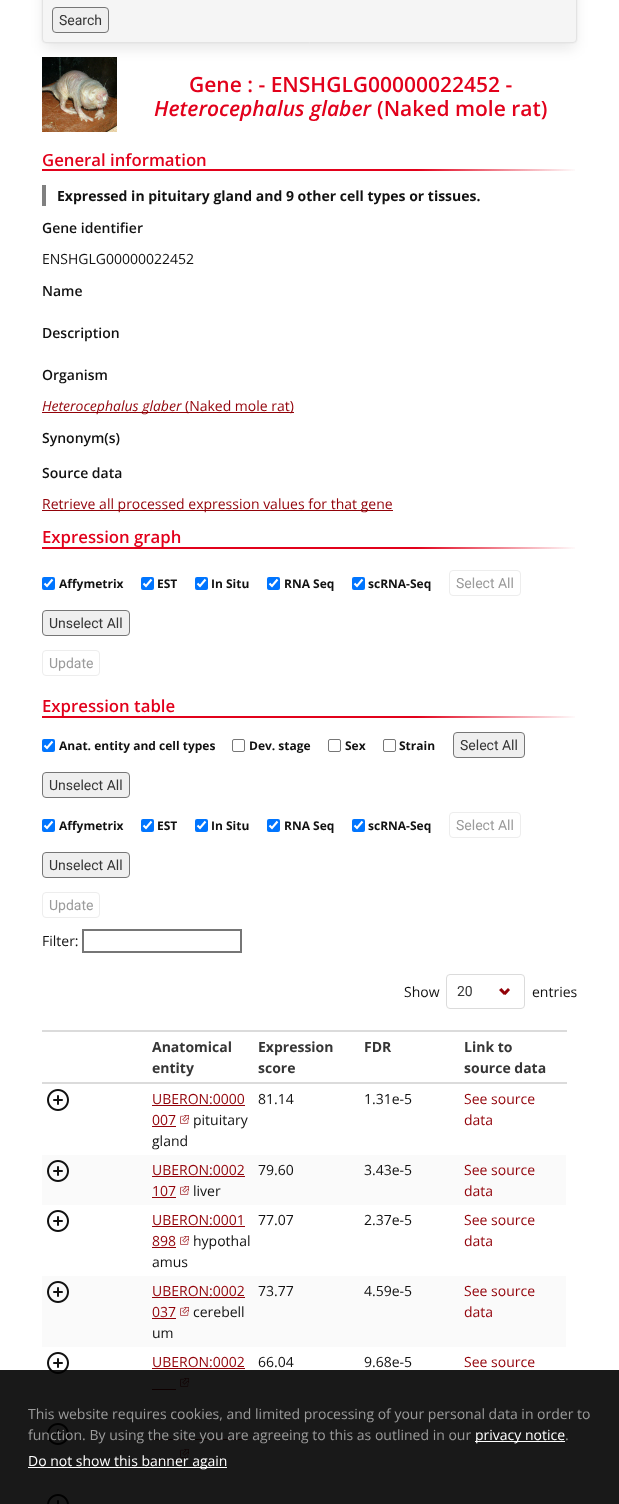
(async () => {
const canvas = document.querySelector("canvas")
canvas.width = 619
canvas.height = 1504
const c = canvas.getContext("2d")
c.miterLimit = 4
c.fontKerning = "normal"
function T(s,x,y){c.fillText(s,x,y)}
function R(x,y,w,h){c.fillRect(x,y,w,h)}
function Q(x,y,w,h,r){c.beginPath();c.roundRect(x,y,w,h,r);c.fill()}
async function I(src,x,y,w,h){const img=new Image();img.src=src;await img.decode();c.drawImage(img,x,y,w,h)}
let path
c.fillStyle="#fff"
R(0,0,619,1504)
c.beginPath()
c.roundRect(41.5,-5.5,536,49,4.5)
c.strokeStyle="#fafafa"
c.stroke()
c.fillStyle="#0a0a0a1a"
c.filter="blur(7px)"
c.beginPath()
c.roundRect(44,-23,531,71,2)
c.fill()
c.filter="none"
c.fillStyle="#f5f5f5"
c.beginPath()
c.roundRect(42.5,-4.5,534,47,3.5)
c.fill()
c.strokeStyle="#e3e3e3"
c.stroke()
c.fillStyle="#efefef"
c.beginPath()
c.roundRect(52.5,7.5,56,25,3.5)
c.fill()
c.strokeStyle="#767676"
c.stroke()
c.font="14px Roboto"
c.fillStyle="#363636"
T("Search",59,25)
await I("1.png",42,57,75,75)
c.font="600 21px Open Sans"
c.fillStyle="#e2011b"
T("Gene : - ENSHGLG00000022452 -",189,92)
c.font="italic 600 21px Open Sans"
T("Heterocephalus glaber",154,116)
c.font="600 21px Open Sans"
T("(Naked mole rat)",377,116)
await I("2.png",42,169,533,2)
c.font="600 16.75px Open Sans"
T("General information",42,166)
c.fillStyle="#808080"
R(42,185,4,21)
c.font="bold 14px Open Sans"
c.fillStyle="#111"
T("Expressed in pituitary gland and 9 other cell types or tissues.",57,201)
c.font="600 14px Open Sans"
T("Gene identifier",42,233)
c.font="14px Open Sans"
T("ENSHGLG00000022452",42,264)
c.font="600 14px Open Sans"
T("Name",42,296)
T("Description",42,338)
T("Organism",42,380)
c.fillStyle="#920209"
R(42,412,139,1)
c.font="italic 14px Open Sans"
T("Heterocephalus glaber",42,411)
R(181,412,113,1)
c.font="14px Open Sans"
T("(Naked mole rat)",185,411)
c.font="600 14px Open Sans"
c.fillStyle="#111"
T("Synonym(s)",42,443)
T("Source data",42,478)
c.fillStyle="#920209"
R(42,510,351,1)
c.font="14px Open Sans"
T("Retrieve all processed expression values for that gene",42,509)
await I("3.png",42,547,533,2)
c.font="600 16.75px Open Sans"
c.fillStyle="#e2011b"
T("Expression graph",42,543)
c.fillStyle="#0075ff"
Q(42,577,13,13,2)
path = new Path2D("M44.5 583.5l2.5 2.5l5.5-6.5")
c.strokeStyle="#fff"
c.lineWidth=2.1
c.stroke(path)
c.font="bold 12px Open Sans"
c.fillStyle="#111"
T("Affymetrix",59,588)
c.fillStyle="#0075ff"
Q(141,577,13,13,2)
path = new Path2D("M143.5 583.5l2.5 2.5l5.5-6.5")
c.stroke(path)
c.fillStyle="#111"
T("EST",157,588)
c.fillStyle="#0075ff"
Q(195,577,13,13,2)
path = new Path2D("M197.5 583.5l2.5 2.5l5.5-6.5")
c.stroke(path)
c.fillStyle="#111"
T("In Situ",211,588)
c.fillStyle="#0075ff"
Q(267,577,13,13,2)
path = new Path2D("M269.5 583.5l2.5 2.5l5.5-6.5")
c.stroke(path)
c.fillStyle="#111"
T("RNA Seq",284,588)
c.fillStyle="#0075ff"
Q(352,577,13,13,2)
path = new Path2D("M354.5 583.5l2.5 2.5l5.5-6.5")
c.stroke(path)
c.fillStyle="#111"
T("scRNA-Seq",368,588)
c.beginPath()
c.roundRect(449.5,570.5,71,25,3.5)
c.strokeStyle="#ededed"
c.lineWidth=1
c.stroke()
c.font="14px Roboto"
c.fillStyle="#9b9b9b"
T("Select All",456,588)
c.fillStyle="#efefef"
c.beginPath()
c.roundRect(42.5,610.5,87,25,3.5)
c.fill()
c.strokeStyle="#767676"
c.stroke()
c.fillStyle="#363636"
T("Unselect All",49,628)
c.beginPath()
c.roundRect(42.5,650.5,57,25,3.5)
c.strokeStyle="#ededed"
c.stroke()
c.fillStyle="#9b9b9b"
T("Update",49,668)
await I("4.png",42,716,533,2)
c.font="600 16.75px Open Sans"
c.fillStyle="#e2011b"
T("Expression table",42,712)
c.fillStyle="#0075ff"
Q(42,739,13,13,2)
path = new Path2D("M44.5 745.5l2.5 2.5l5.5-6.5")
c.strokeStyle="#fff"
c.lineWidth=2.1
c.stroke(path)
c.font="bold 12px Open Sans"
c.fillStyle="#111"
T("Anat. entity and cell types",59,750)
c.beginPath()
c.roundRect(232.5,739.5,12,12,1.5)
c.strokeStyle="#767676"
c.lineWidth=1
c.stroke()
T("Dev. stage",249,750)
c.beginPath()
c.roundRect(328.5,739.5,12,12,1.5)
c.stroke()
T("Sex",345,750)
c.beginPath()
c.roundRect(383.5,739.5,12,12,1.5)
c.stroke()
T("Strain",399,750)
c.fillStyle="#efefef"
c.beginPath()
c.roundRect(453.5,732.5,71,25,3.5)
c.fill()
c.stroke()
c.font="14px Roboto"
c.fillStyle="#363636"
T("Select All",460,750)
c.fillStyle="#efefef"
c.beginPath()
c.roundRect(42.5,772.5,87,25,3.5)
c.fill()
c.stroke()
c.fillStyle="#363636"
T("Unselect All",49,790)
c.fillStyle="#0075ff"
Q(42,819,13,13,2)
path = new Path2D("M44.5 825.5l2.5 2.5l5.5-6.5")
c.strokeStyle="#fff"
c.lineWidth=2.1
c.stroke(path)
c.font="bold 12px Open Sans"
c.fillStyle="#111"
T("Affymetrix",59,830)
c.fillStyle="#0075ff"
Q(141,819,13,13,2)
path = new Path2D("M143.5 825.5l2.5 2.5l5.5-6.5")
c.stroke(path)
c.fillStyle="#111"
T("EST",157,830)
c.fillStyle="#0075ff"
Q(195,819,13,13,2)
path = new Path2D("M197.5 825.5l2.5 2.5l5.5-6.5")
c.stroke(path)
c.fillStyle="#111"
T("In Situ",211,830)
c.fillStyle="#0075ff"
Q(267,819,13,13,2)
path = new Path2D("M269.5 825.5l2.5 2.5l5.5-6.5")
c.stroke(path)
c.fillStyle="#111"
T("RNA Seq",284,830)
c.fillStyle="#0075ff"
Q(352,819,13,13,2)
path = new Path2D("M354.5 825.5l2.5 2.5l5.5-6.5")
c.stroke(path)
c.fillStyle="#111"
T("scRNA-Seq",368,830)
c.beginPath()
c.roundRect(449.5,812.5,71,25,3.5)
c.strokeStyle="#ededed"
c.lineWidth=1
c.stroke()
c.font="14px Roboto"
c.fillStyle="#9b9b9b"
T("Select All",456,830)
c.fillStyle="#efefef"
c.beginPath()
c.roundRect(42.5,852.5,87,25,3.5)
c.fill()
c.strokeStyle="#767676"
c.stroke()
c.fillStyle="#363636"
T("Unselect All",49,870)
c.beginPath()
c.roundRect(42.5,892.5,57,25,3.5)
c.strokeStyle="#ededed"
c.stroke()
c.fillStyle="#9b9b9b"
T("Update",49,910)
c.font="14px Open Sans"
c.fillStyle="#111"
T("Filter:",42,946)
c.strokeStyle="#767676"
c.lineWidth=2
c.strokeRect(83,930,158,22)
T("Show",404,997)
c.beginPath()
c.roundRect(446.5,974.5,78,34,3.5)
c.strokeStyle="#dbdbdb"
c.lineWidth=1
c.stroke()
c.font="14px Roboto"
c.fillStyle="#363636"
T("20",457,996)
c.fillStyle="#920209"
path = new Path2D("M503 993l5-5l2 2l-4.5 5z")
c.fill(path)
path = new Path2D("M499 990l2.5-2l4.5 5l-2 2z")
c.fill(path)
c.font="14px Open Sans"
c.fillStyle="#111"
T("entries",532,997)
c.font="bold 14px Open Sans"
c.fillStyle="#363636"
T("Anatomical",152,1052)
T("entity",152,1073)
T("Expression",258,1052)
T("score",258,1073)
T("FDR",364,1052)
c.fillStyle="#dbdbdb"
R(42,1030,525,2)
R(42,1082,525,2)
c.fillStyle="#363636"
T("Link to",464,1052)
T("source data",464,1073)
await I("5.png",47,1089,22,22)
c.font="14px Open Sans"
c.fillStyle="#920209"
T("UBERON:0000",152,1104)
R(152,1105,93,1)
T("007",152,1125)
R(152,1126,24,1)
await I("6.png",180,1115,9,9)
c.fillStyle="#111"
T("pituitary",193,1125)
T("gland",152,1146)
T("81.14",258,1104)
T("1.31e-5",364,1104)
c.fillStyle="#920209"
T("See source",464,1104)
T("data",464,1125)
c.fillStyle="#fafafa"
R(42,1155,524,50)
await I("7.png",47,1160,22,22)
c.fillStyle="#920209"
T("UBERON:0002",152,1175)
R(152,1176,93,1)
T("107",152,1196)
R(152,1197,24,1)
await I("8.png",180,1186,9,9)
c.fillStyle="#111"
T("liver",193,1196)
T("79.60",258,1175)
T("3.43e-5",364,1175)
c.fillStyle="#920209"
T("See source",464,1175)
T("data",464,1196)
await I("5.png",47,1210,22,22)
T("UBERON:0001",152,1225)
R(152,1226,93,1)
T("898",152,1246)
R(152,1247,24,1)
await I("6.png",180,1236,9,9)
c.fillStyle="#111"
T("hypothal",193,1246)
T("amus",152,1267)
T("77.07",258,1225)
T("2.37e-5",364,1225)
c.fillStyle="#920209"
T("See source",464,1225)
T("data",464,1246)
c.fillStyle="#fafafa"
R(42,1276,524,71)
await I("7.png",47,1281,22,22)
c.fillStyle="#920209"
T("UBERON:0002",152,1296)
R(152,1297,93,1)
T("037",152,1317)
R(152,1318,24,1)
await I("8.png",180,1307,9,9)
c.fillStyle="#111"
T("cerebell",193,1317)
T("um",152,1338)
T("73.77",258,1296)
T("4.59e-5",364,1296)
c.fillStyle="#920209"
T("See source",464,1296)
T("data",464,1317)
await I("5.png",47,1352,22,22)
T("UBERON:0002",152,1367)
R(152,1368,93,1)
R(152,1389,24,1)
await I("6.png",180,1378,9,9)
c.fillStyle="#111"
T("66.04",258,1367)
T("9.68e-5",364,1367)
c.fillStyle="#920209"
T("See source",464,1367)
c.fillStyle="#fafafa"
R(42,1418,524,71)
await I("7.png",47,1423,22,22)
c.fillStyle="#920209"
R(152,1439,93,1)
await I("8.png",180,1449,9,9)
R(152,1460,24,1)
await I("9.png",47,1494,22,10)
c.fillStyle="#000000e6"
R(0,1370,619,134)
c.fillStyle="#9b9b9b"
T("This website requires cookies, and limited processing of your personal data in order to",28,1419)
T("function. By using the site you are agreeing to this as outlined in our",28,1440)
c.fillStyle="#fff"
R(475,1441,90,1)
T("privacy notice",475,1440)
c.fillStyle="#9b9b9b"
T(".",565,1440)
c.fillStyle="#fff"
R(28,1467,199,1)
T("Do not show this banner again",28,1466)
})()
